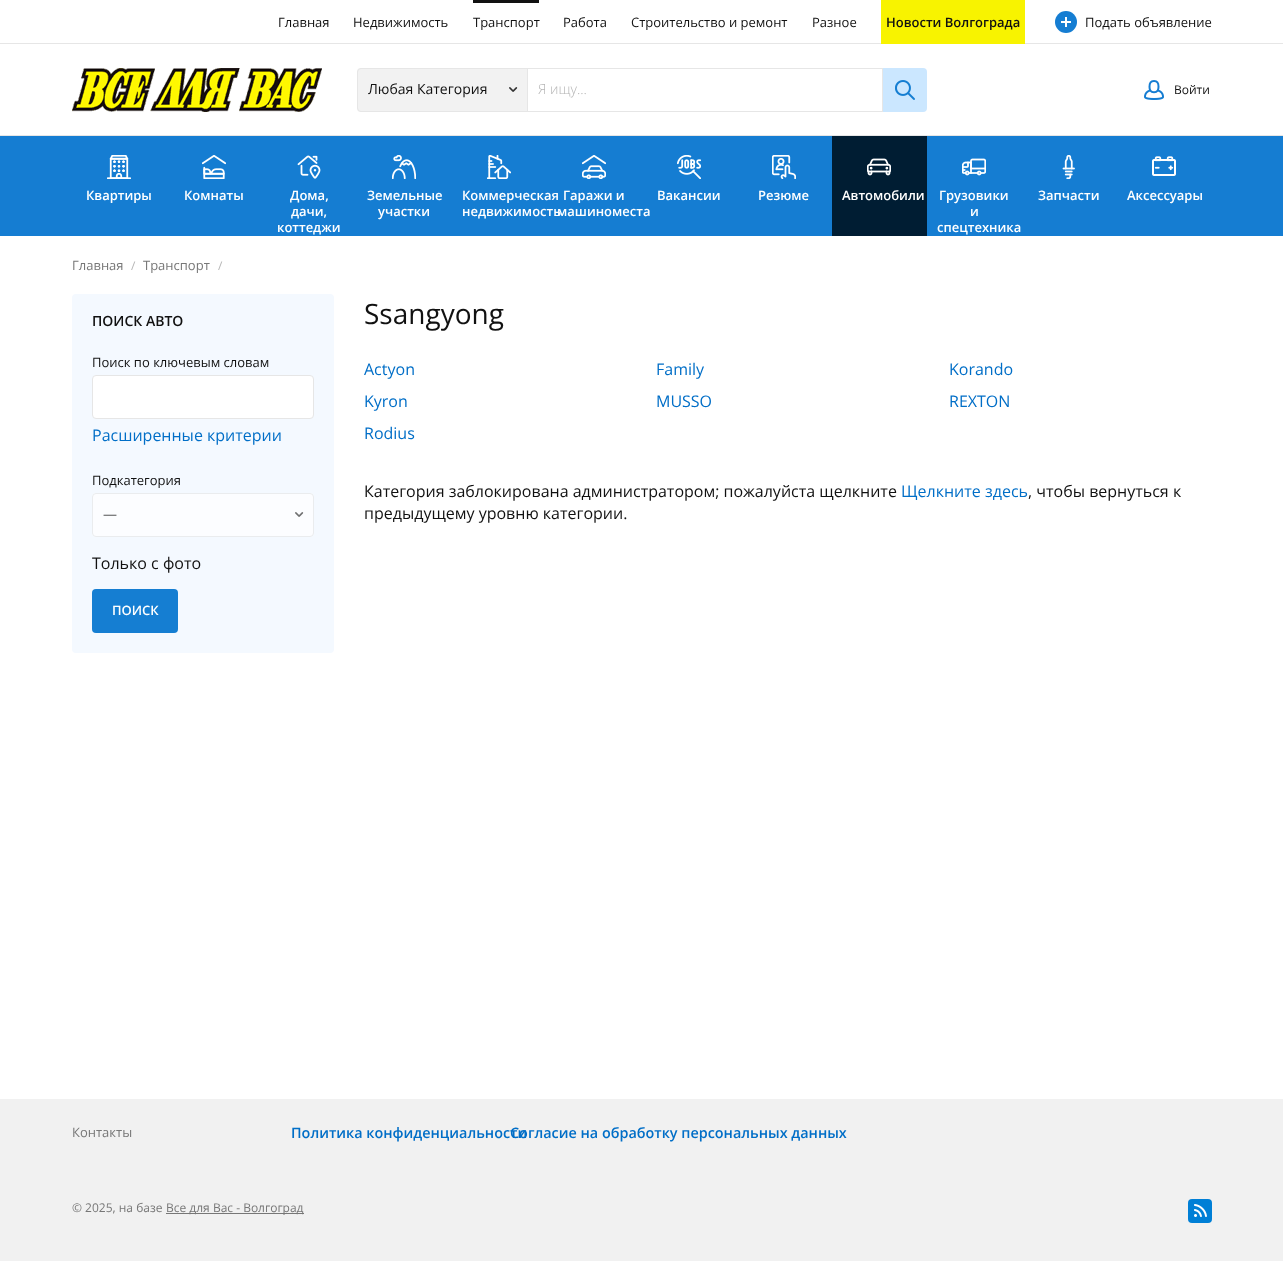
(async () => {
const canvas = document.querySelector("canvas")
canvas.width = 1283
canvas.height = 1261
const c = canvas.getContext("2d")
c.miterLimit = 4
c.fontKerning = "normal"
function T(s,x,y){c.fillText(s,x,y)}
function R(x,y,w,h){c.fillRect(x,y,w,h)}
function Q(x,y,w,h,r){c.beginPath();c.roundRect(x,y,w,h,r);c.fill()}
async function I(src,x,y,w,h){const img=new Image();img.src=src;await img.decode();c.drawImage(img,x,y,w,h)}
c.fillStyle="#fff"
R(0,0,1283,1261)
c.fillStyle="#e6e6e6"
R(0,43,1283,1)
c.font="13px Open Sans"
c.fillStyle="#111"
T("Главная",278,27)
T("Недвижимость",353,27)
R(473,0,66,3)
T("Транспорт",473,27)
T("Работа",563,27)
T("Строительство и ремонт",631,27)
T("Разное",812,27)
c.fillStyle="#f8f300"
R(881,0,144,44)
c.font="600 13px Open Sans"
c.fillStyle="#111"
T("Новости Волгограда",886,27)
c.fillStyle="#157dd2"
c.beginPath()
c.arc(1066,22,11,0,7)
c.fill()
c.fillStyle="#fff"
R(1065,17,2,10)
R(1061,21,10,2)
c.font="13px Open Sans"
c.fillStyle="#111"
T("Подать объявление",1085,27)
c.fillStyle="#e6e6e6"
R(0,135,1283,1)
await I("1.png",72,68,250,44)
c.fillStyle="#f2f2f2"
c.beginPath()
c.roundRect(357,68,171,44,[4,0,0,4])
c.fill()
await I("2.png",509,87,9,5)
c.beginPath()
c.roundRect(357.5,68.5,170,43,[3.5,0,0,3.5])
c.strokeStyle="#e6e6e6"
c.stroke()
c.font="14px Open Sans"
c.fillStyle="#111"
T("Любая Категория",368,94)
c.strokeRect(527.5,68.5,355,43)
c.font="300 14px Open Sans"
c.fillStyle="#b5b5b5"
T("Я ищу...",538,94)
c.fillStyle="#cbe7ff"
c.beginPath()
c.roundRect(883,68,44,44,[0,4,4,0])
c.fill()
await I("3.png",895,80,20,20)
await I("4.png",1144,80,20,20)
c.font="12px Open Sans"
c.fillStyle="#111"
T("Войти",1174,94)
c.fillStyle="#157dd2"
R(0,136,1283,100)
await I("5.png",107,155,24,24)
c.font="600 13px Open Sans"
c.fillStyle="#fff"
T("Квартиры",86,200)
await I("6.png",202,155,24,24)
T("Комнаты",184,200)
await I("7.png",297,155,24,24)
T("Дома,",290,200)
T("дачи,",291,216)
T("коттеджи",277,232)
await I("8.png",392,155,24,24)
T("Земельные",367,200)
T("участки",378,216)
await I("9.png",487,155,24,24)
T("Коммерческая",462,200)
T("недвижимость",462,216)
await I("10.png",582,155,24,24)
T("Гаражи и",563,200)
T("машиноместа",557,216)
await I("11.png",677,155,24,24)
T("Вакансии",657,200)
await I("12.png",772,155,24,24)
T("Резюме",758,200)
c.fillStyle="#001d33"
R(832,136,95,100)
await I("13.png",867,158,24,18)
c.fillStyle="#fff"
T("Автомобили",842,200)
await I("14.png",962,158,24,18)
T("Грузовики",939,200)
T("и",970,216)
T("спецтехника",937,232)
await I("15.png",1062,155,13,24)
T("Запчасти",1038,200)
await I("16.png",1152,156,24,20)
T("Аксессуары",1127,200)
c.font="13px Open Sans"
c.fillStyle="#777"
T("Главная",72,270)
c.font="12px Open Sans"
c.fillStyle="#b5b5b5"
T("/",131,270)
c.font="13px Open Sans"
c.fillStyle="#777"
T("Транспорт",143,270)
c.font="12px Open Sans"
c.fillStyle="#b5b5b5"
T("/",218,270)
c.fillStyle="#f4f9ff"
Q(72,294,262,359,4)
c.font="600 14px Open Sans"
c.fillStyle="#111"
T("ПОИСК АВТО",92,326)
c.font="13px Open Sans"
T("Поиск по ключевым словам",92,367)
c.fillStyle="#fff"
c.beginPath()
c.roundRect(92.5,375.5,221,43,3.5)
c.fill()
c.stroke()
c.font="16px Open Sans"
c.fillStyle="#006ec7"
T("Расширенные критерии",92,441)
c.font="13px Open Sans"
c.fillStyle="#111"
T("Подкатегория",92,485)
c.fillStyle="#fcfdff"
Q(92,493,222,44,4)
await I("17.png",295,512,9,5)
c.beginPath()
c.roundRect(92.5,493.5,221,43,3.5)
c.strokeStyle="#eaecee"
c.stroke()
c.font="14px Open Sans"
c.fillStyle="#555758"
T("—",103,519)
c.font="16px Open Sans"
c.fillStyle="#111"
T("Только с фото",92,569)
c.fillStyle="#157ed2"
Q(92,589,86,44,4)
c.font="600 13px Open Sans"
c.fillStyle="#fff"
T("ПОИСК",112,615)
c.font="28px Open Sans"
c.fillStyle="#111"
T("Ssangyong",364,324)
c.font="16px Open Sans"
c.fillStyle="#006ec7"
T("Actyon",364,375)
T("Family",656,375)
T("Korando",949,375)
T("Kyron",364,407)
T("MUSSO",656,407)
T("REXTON",949,407)
T("Rodius",364,439)
c.fillStyle="#111"
T("Категория заблокирована администратором; пожалуйста щелкните",364,497)
c.fillStyle="#006ec7"
T("Щелкните здесь",901,497)
c.fillStyle="#111"
T(", чтобы вернуться к",1028,497)
T("предыдущему уровню категории.",364,519)
c.fillStyle="#f1f1f1"
R(0,1099,1283,162)
c.font="13px Open Sans"
c.fillStyle="#777"
T("Контакты",72,1137)
c.font="600 14.4px Open Sans"
c.fillStyle="#006ec7"
T("Политика конфиденциальности",291,1138)
T("Согласие на обработку персональных данных",510,1138)
c.font="12px Open Sans"
c.fillStyle="#777"
T("© 2025, на базе",72,1212)
R(166,1213,138,1)
T("Все для Вас - Волгоград",166,1212)
c.fillStyle="#007fd6"
Q(1188,1199,24,24,4)
await I("18.png",1194,1204,13,13)
})()
